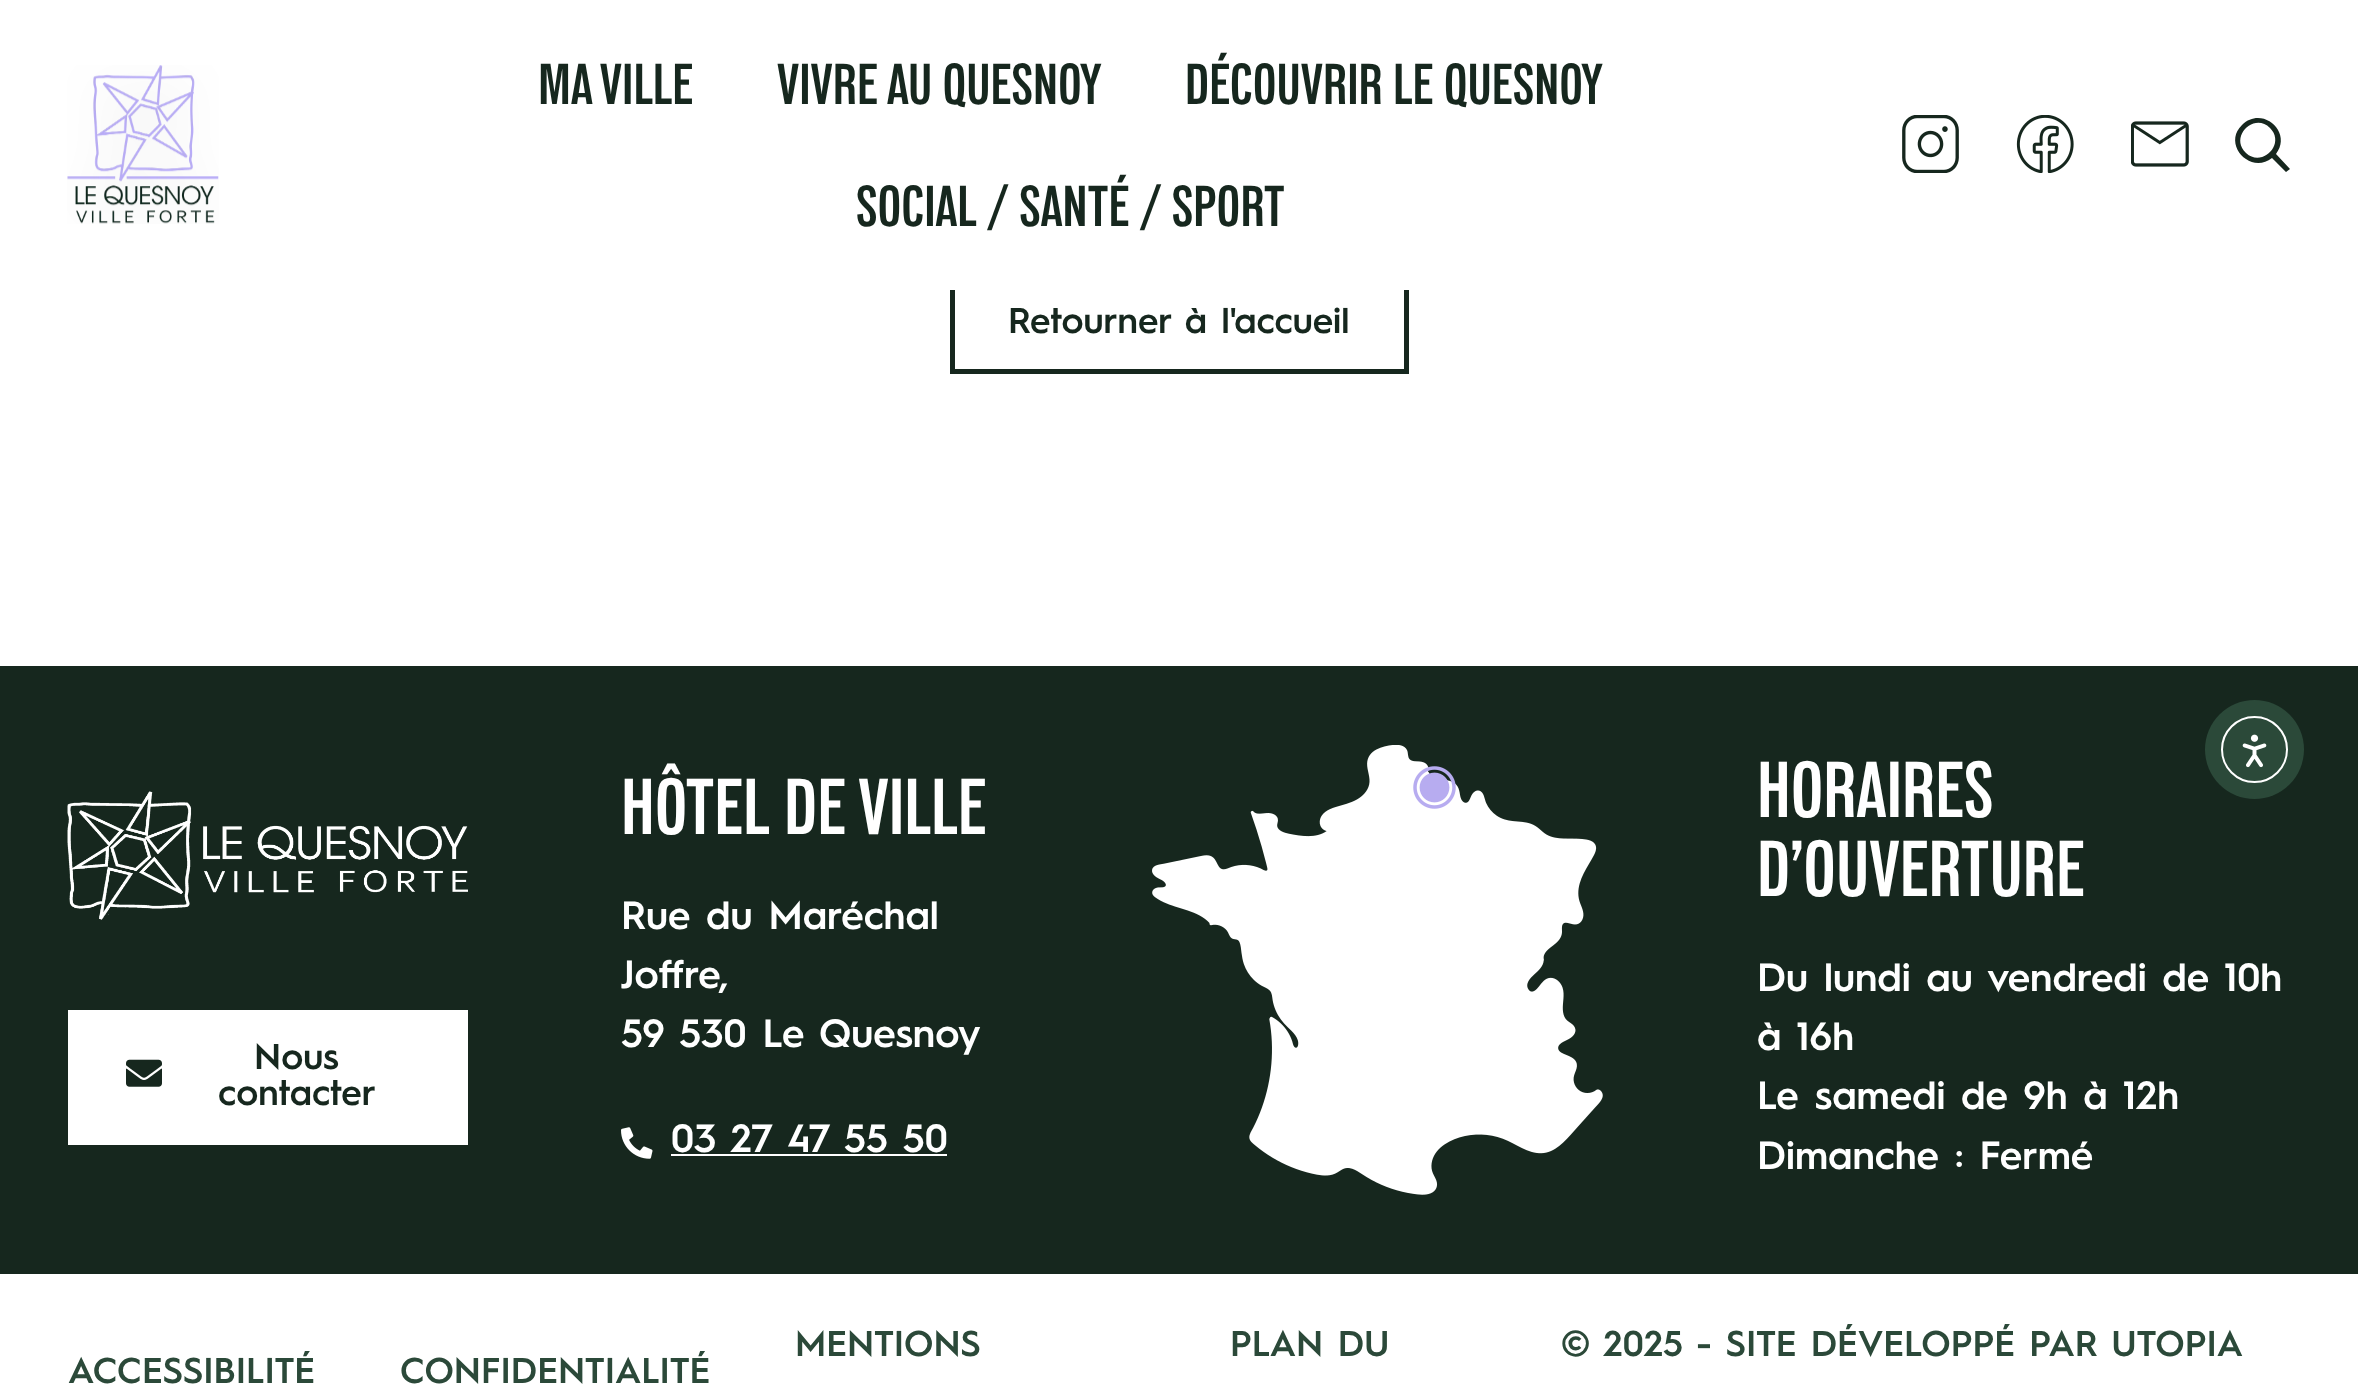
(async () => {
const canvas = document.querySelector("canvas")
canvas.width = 2358
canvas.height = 1398
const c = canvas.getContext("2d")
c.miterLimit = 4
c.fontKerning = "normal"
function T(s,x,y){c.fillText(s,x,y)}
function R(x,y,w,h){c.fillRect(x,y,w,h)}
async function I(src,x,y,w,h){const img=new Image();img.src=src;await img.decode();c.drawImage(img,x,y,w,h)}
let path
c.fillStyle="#fff"
R(0,0,2358,1398)
c.strokeStyle="#16271e"
c.lineWidth=5
c.strokeRect(952.5,277.5,454,94)
R(950,275,459,15)
await I("1.png",67,65,152,159)
c.font="600 57.5px 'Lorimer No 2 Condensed'"
c.fillStyle="#16271e"
T("MA VILLE",538,104)
T("VIVRE AU QUESNOY",777,104)
T("DÉCOUVRIR LE QUESNOY",1185,104)
T("SOCIAL / SANTÉ / SPORT",856,226)
await I("2.png",1902,115,57,58)
await I("3.png",2016,115,58,58)
await I("4.png",2131,121,58,46)
path = new Path2D("M2270 128c-16-16-41 9-24 25c16 15 40-9 24-25zm-28-3c20-20 51 7 34 29l14 15l-4 3l-14-14c-22 17-50-14-30-33z")
c.fill(path)
c.font="600 36px 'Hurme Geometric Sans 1'"
T("Retourner à l'accueil",1008,333)
R(0,666,2358,608)
c.fillStyle="#2b4939"
c.beginPath()
c.arc(2254.5,749.5,49.5,0,7)
c.fill()
c.beginPath()
c.arc(2254.5,749.5,32.5,0,7)
c.strokeStyle="#fff"
c.lineWidth=2
c.stroke()
await I("5.png",2242,734,25,34)
await I("6.png",67,791,401,129)
c.fillStyle="#fff"
R(68,1010,400,135)
await I("7.png",126,1059,36,28)
c.fillStyle="#16271e"
T("Nous",254,1069)
T("contacter",218,1105)
c.font="600 79px 'Lorimer No 2 Condensed'"
c.fillStyle="#fff"
T("HÔTEL DE VILLE",621,834)
c.font="600 39.6px 'Hurme Geometric Sans 1'"
T("Rue du Maréchal",621,929)
T("Joffre,",621,988)
T("59 530 Le Quesnoy",621,1047)
await I("8.png",621,1127,32,32)
T("03 27 47 55 50",671,1152)
R(671,1154,276,2)
await I("9.png",1152,745,451,450)
c.font="600 79px 'Lorimer No 2 Condensed'"
T("HORAIRES",1757,817)
T("D’OUVERTURE",1757,896)
c.font="600 39.6px 'Hurme Geometric Sans 1'"
T("Du lundi au vendredi de 10h",1757,991)
T("à 16h",1757,1050)
T("Le samedi de 9h à 12h",1757,1109)
T("Dimanche : Fermé",1757,1169)
c.font="600 36px 'Hurme Geometric Sans 1'"
c.fillStyle="#2b4939"
T("MENTIONS",795,1356)
T("PLAN DU",1230,1356)
c.wordSpacing="-0.5px"
T("© 2025 - SITE DÉVELOPPÉ PAR UTOPIA",1561,1356)
c.wordSpacing="0px"
T("ACCESSIBILITÉ",68,1383)
T("CONFIDENTIALITÉ",400,1383)
})()
